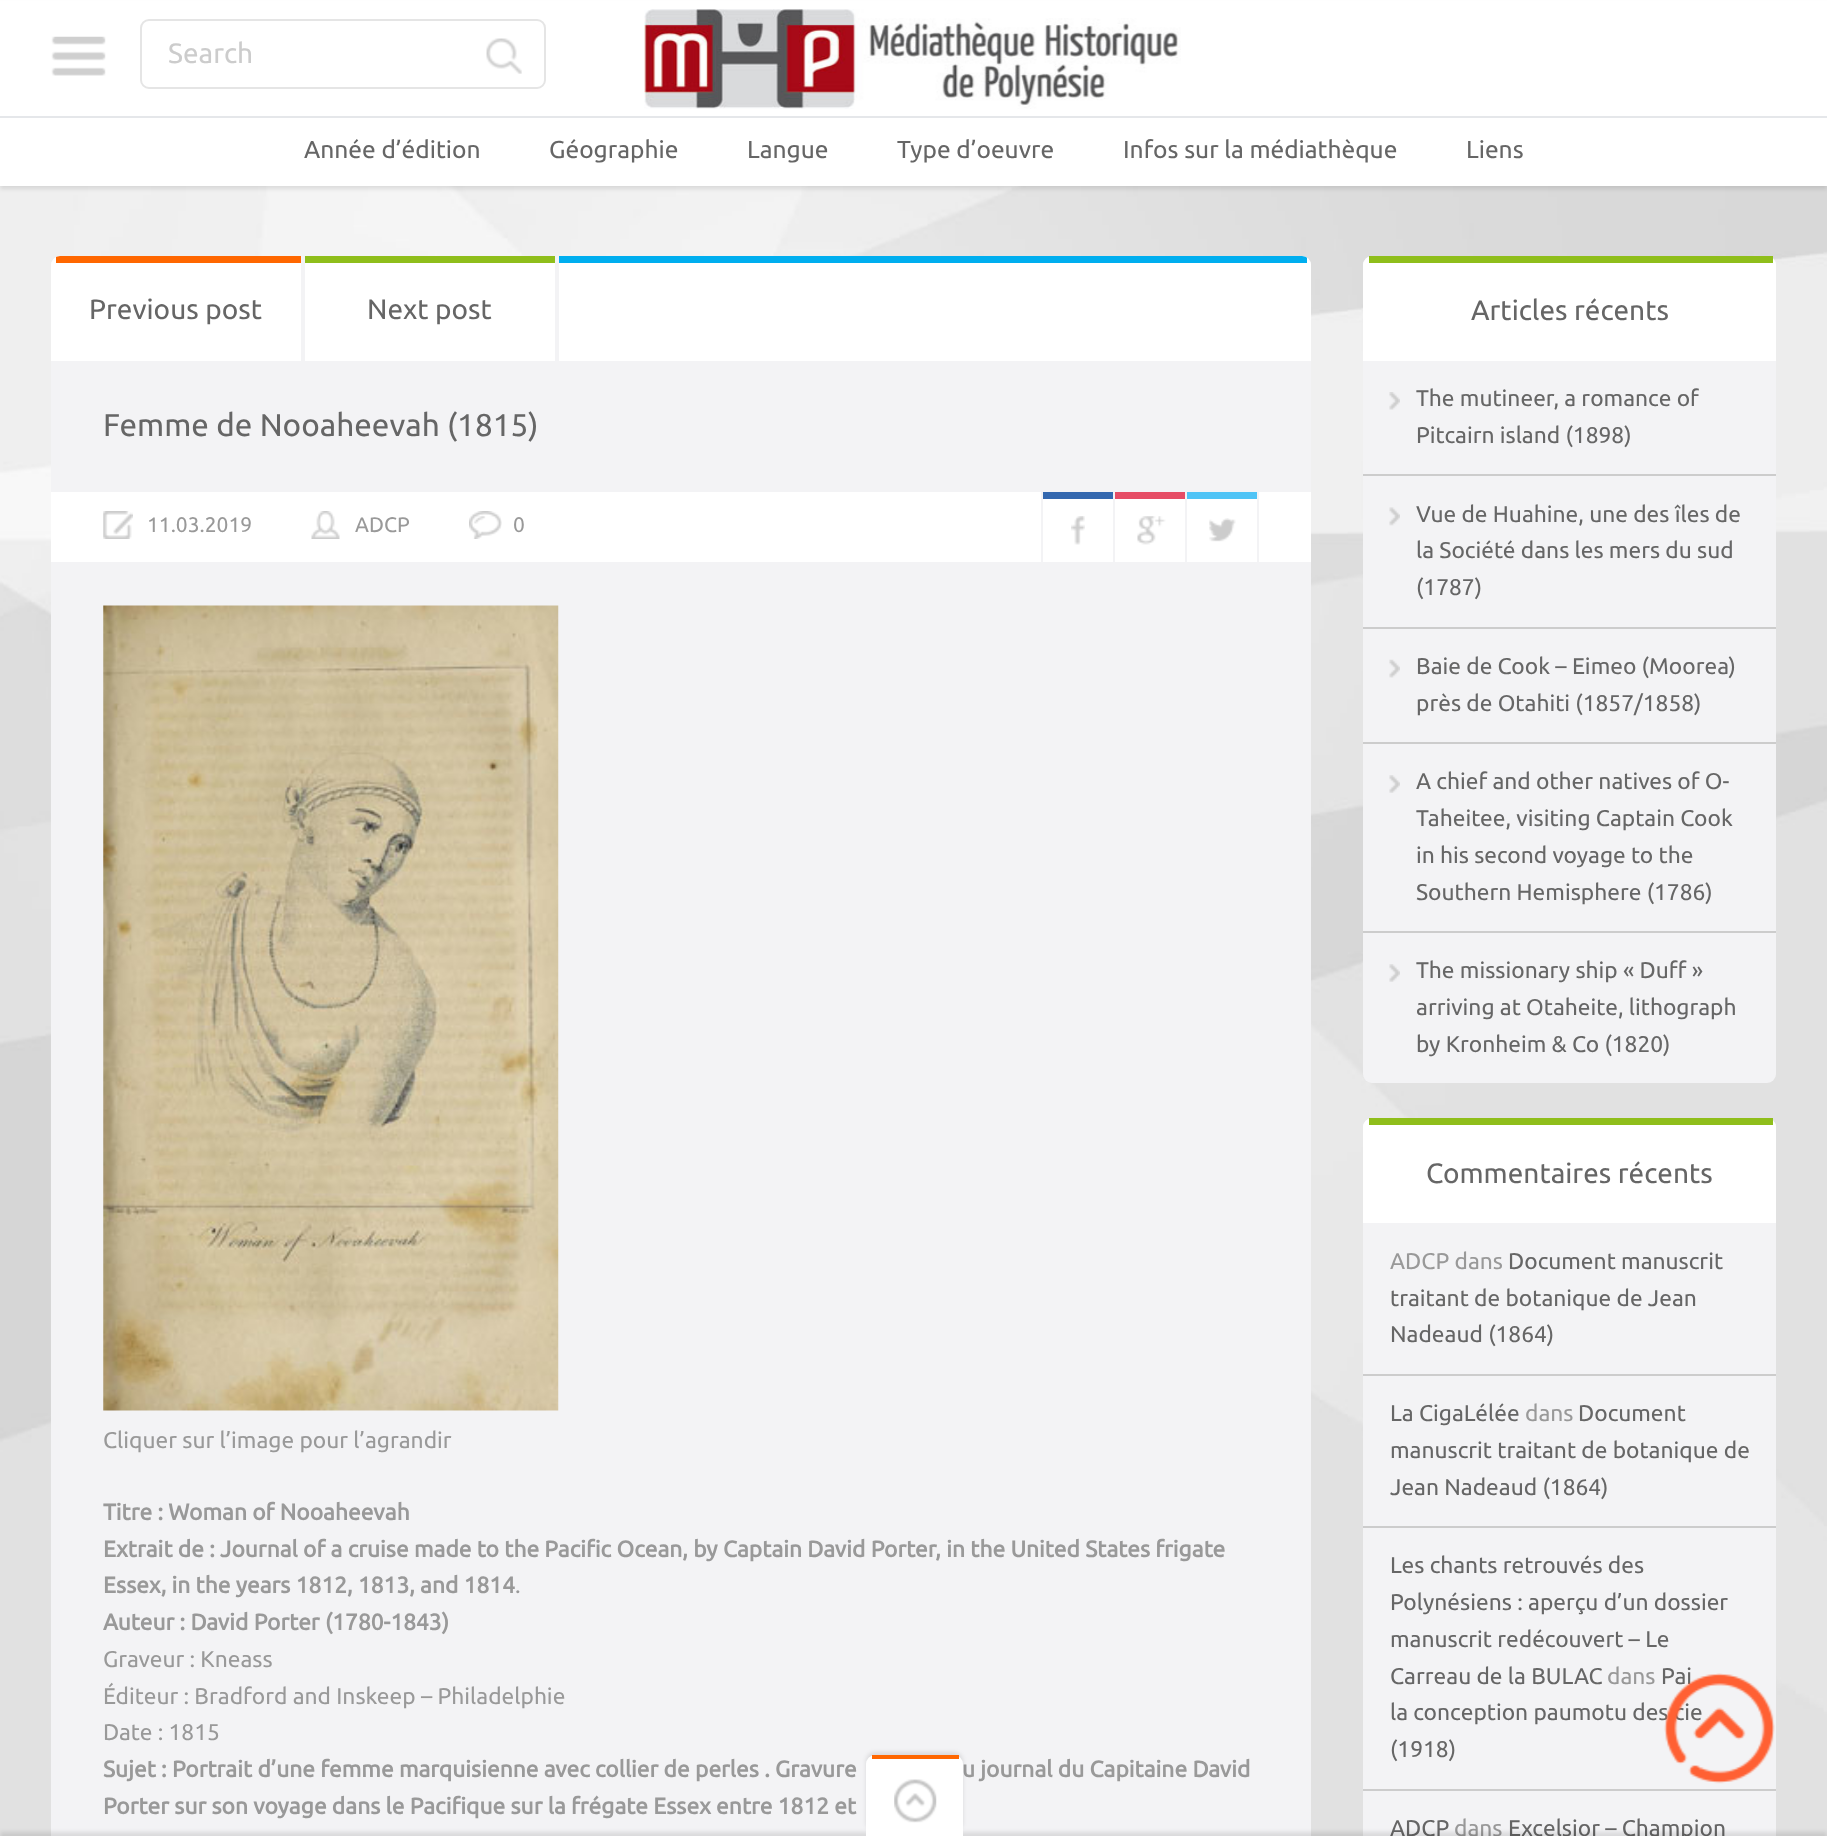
(async () => {
const canvas = document.querySelector("canvas")
canvas.width = 1827
canvas.height = 1844
const c = canvas.getContext("2d")
c.miterLimit = 4
c.fontKerning = "normal"
function T(s,x,y){c.fillText(s,x,y)}
function R(x,y,w,h){c.fillRect(x,y,w,h)}
function Q(x,y,w,h,r){c.beginPath();c.roundRect(x,y,w,h,r);c.fill()}
async function I(src,x,y,w,h){const img=new Image();img.src=src;await img.decode();c.drawImage(img,x,y,w,h)}
c.fillStyle="#fff"
R(0,0,1827,1844)
await I("1.png",0,186,1827,1650)
c.fillStyle="#0000001a"
c.filter="blur(2px)"
c.beginPath()
c.rect(0,4,1827,185)
c.fill()
c.filter="none"
c.fillStyle="#fff"
R(0,1,1827,185)
await I("2.png",51,36,55,40)
c.beginPath()
c.roundRect(141,20,404,68,8)
c.strokeStyle="#e5e5e5"
c.lineWidth=2
c.stroke()
c.font="28px Ubuntu"
c.fillStyle="#ccc"
T("Search",168,63)
await I("3.png",486,38,36,36)
await I("4.png",644,9,537,100)
c.fillStyle="#e5e7ea"
R(0,116,1827,2)
c.font="24.5px Ubuntu"
c.fillStyle="#666"
T("Année d’édition",304,158)
T("Géographie",549,158)
T("Langue",747,158)
T("Type d’oeuvre",897,158)
T("Infos sur la médiathèque",1123,158)
T("Liens",1466,158)
c.fillStyle="#f3f3f5"
Q(51,256,1260,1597,9)
c.fillStyle="#fff"
c.beginPath()
c.roundRect(51,256,1260,105,[9,9,0,0])
c.fill()
c.save()
c.beginPath()
c.roundRect(51,256,1260,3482,9)
c.clip()
c.fillStyle="#00aeef"
R(558,256,749,7)
c.restore()
c.fillStyle="#f3f3f5"
R(301,256,4,105)
c.save()
c.beginPath()
c.roundRect(51,256,1260,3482,9)
c.clip()
c.fillStyle="#ff6700"
R(56,256,245,7)
c.restore()
c.font="28px Ubuntu"
c.fillStyle="#666"
T("Previous post",89,319)
c.fillStyle="#f3f3f5"
R(555,256,4,105)
c.fillStyle="#8fbe1b"
R(305,256,250,7)
c.fillStyle="#666"
T("Next post",367,319)
c.font="31.5px Ubuntu"
T("Femme de Nooaheevah (1815)",103,436)
c.fillStyle="#fff"
R(51,492,1260,70)
await I("5.png",103,511,30,28)
c.font="21px Ubuntu"
c.fillStyle="#999"
T("11.03.2019",147,532)
await I("6.png",311,511,29,28)
T("ADCP",355,532)
await I("7.png",469,511,33,28)
T("0",513,532)
c.fillStyle="#f3f3f5"
R(1113,492,2,70)
R(1041,492,2,70)
await I("8.png",1071,516,14,29)
c.fillStyle="#3468af"
R(1043,492,70,7)
c.fillStyle="#f3f3f5"
R(1185,492,2,70)
await I("9.png",1137,516,29,29)
c.fillStyle="#e64c65"
R(1115,492,70,7)
c.fillStyle="#f3f3f5"
R(1257,492,2,70)
await I("10.png",1209,518,27,24)
c.fillStyle="#4fc4f6"
R(1187,492,70,7)
await I("11.png",103,605,456,806)
c.font="22.75px Ubuntu"
c.fillStyle="#999"
T("Cliquer sur l’image pour l’agrandir",103,1448)
c.font="bold 22.75px Ubuntu"
T("Titre : Woman of Nooaheevah",103,1520)
T("Extrait de : Journal of a cruise made to the Pacific Ocean, by Captain David Porter, in the United States frigate",103,1557)
T("Essex, in the years 1812, 1813, and 1814",103,1593)
c.font="22.75px Ubuntu"
T(".",515,1593)
c.font="bold 22.75px Ubuntu"
T("Auteur : David Porter (1780-1843)",103,1630)
c.font="22.75px Ubuntu"
T("Graveur : Kneass",103,1667)
T("Éditeur : Bradford and Inskeep – Philadelphie",103,1704)
T("Date : 1815",103,1740)
c.font="bold 22.75px Ubuntu"
T("Sujet : Portrait d’une femme marquisienne avec collier de perles . Gravure",103,1777)
T("u journal du Capitaine David",962,1777)
T("Porter sur son voyage dans le Pacifique sur la frégate Essex entre 1812 et",103,1814)
c.fillStyle="#f3f3f5"
Q(1363,256,413,827,9)
c.fillStyle="#fff"
c.beginPath()
c.roundRect(1363,256,413,105,[9,9,0,0])
c.fill()
c.fillStyle="#8fbe1b"
R(1369,256,404,7)
c.font="28px Ubuntu"
c.fillStyle="#666"
T("Articles récents",1471,320)
await I("12.png",1389,392,11,18)
c.fillStyle="#ccc"
R(1363,474,413,2)
c.font="22.75px Ubuntu"
c.fillStyle="#666"
T("The mutineer, a romance of",1416,406)
T("Pitcairn island (1898)",1416,443)
await I("13.png",1389,507,11,19)
c.fillStyle="#ccc"
R(1363,627,413,2)
c.fillStyle="#666"
T("Vue de Huahine, une des îles de",1416,522)
T("la Société dans les mers du sud",1416,558)
T("(1787)",1416,595)
await I("14.png",1389,659,11,19)
c.fillStyle="#ccc"
R(1363,742,413,2)
c.fillStyle="#666"
T("Baie de Cook – Eimeo (Moorea)",1416,674)
T("près de Otahiti (1857/1858)",1416,711)
await I("15.png",1389,775,11,18)
c.fillStyle="#ccc"
R(1363,931,413,2)
c.fillStyle="#666"
T("A chief and other natives of O-",1416,789)
T("Taheitee, visiting Captain Cook",1416,826)
T("in his second voyage to the",1416,863)
T("Southern Hemisphere (1786)",1416,900)
await I("15.png",1389,964,11,18)
T("The missionary ship « Duff »",1416,978)
T("arriving at Otaheite, lithograph",1416,1015)
T("by Kronheim & Co (1820)",1416,1052)
c.fillStyle="#f3f3f5"
Q(1363,1118,413,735,9)
c.fillStyle="#fff"
c.beginPath()
c.roundRect(1363,1118,413,105,[9,9,0,0])
c.fill()
c.fillStyle="#8fbe1b"
R(1369,1118,404,7)
c.font="28px Ubuntu"
c.fillStyle="#666"
T("Commentaires récents",1426,1183)
c.fillStyle="#ccc"
R(1363,1374,413,2)
c.font="22.75px Ubuntu"
c.fillStyle="#999"
T("ADCP dans",1390,1269)
c.fillStyle="#666"
T("Document manuscrit",1508,1269)
T("traitant de botanique de Jean",1390,1306)
T("Nadeaud (1864)",1390,1342)
c.fillStyle="#ccc"
R(1363,1526,413,2)
c.fillStyle="#666"
T("La CigaLélée",1390,1421)
c.fillStyle="#999"
T("dans",1525,1421)
c.fillStyle="#666"
T("Document",1578,1421)
T("manuscrit traitant de botanique de",1390,1458)
T("Jean Nadeaud (1864)",1390,1495)
c.fillStyle="#ccc"
R(1363,1789,413,2)
c.fillStyle="#666"
T("Les chants retrouvés des",1390,1573)
T("Polynésiens : aperçu d’un dossier",1390,1610)
T("manuscrit redécouvert – Le",1390,1647)
T("Carreau de la BULAC",1390,1684)
c.fillStyle="#999"
T("dans",1607,1684)
c.fillStyle="#666"
T("Pai",1661,1684)
T("la conception paumotu des cie",1390,1720)
T("(1918)",1390,1757)
T("ADCP",1390,1836)
c.fillStyle="#999"
T("dans",1454,1836)
c.fillStyle="#666"
T("Excelsior – Champion",1508,1836)
c.fillStyle="#0000001a"
c.filter="blur(2px)"
c.beginPath()
c.rect(0,1832,1827,9)
c.fill()
c.filter="none"
await I("16.png",1664,1673,111,111)
c.fillStyle="#fff"
R(0,1836,1827,8)
c.fillStyle="#0000001a"
c.filter="blur(2px)"
c.beginPath()
c.roundRect(866,1752,97,80,9)
c.fill()
c.filter="none"
c.fillStyle="#fff"
c.beginPath()
c.roundRect(866,1755,97,81,[9,9,0,0])
c.fill()
await I("17.png",894,1779,43,44)
c.fillStyle="#ff6700"
R(872,1755,87,4)
})()
